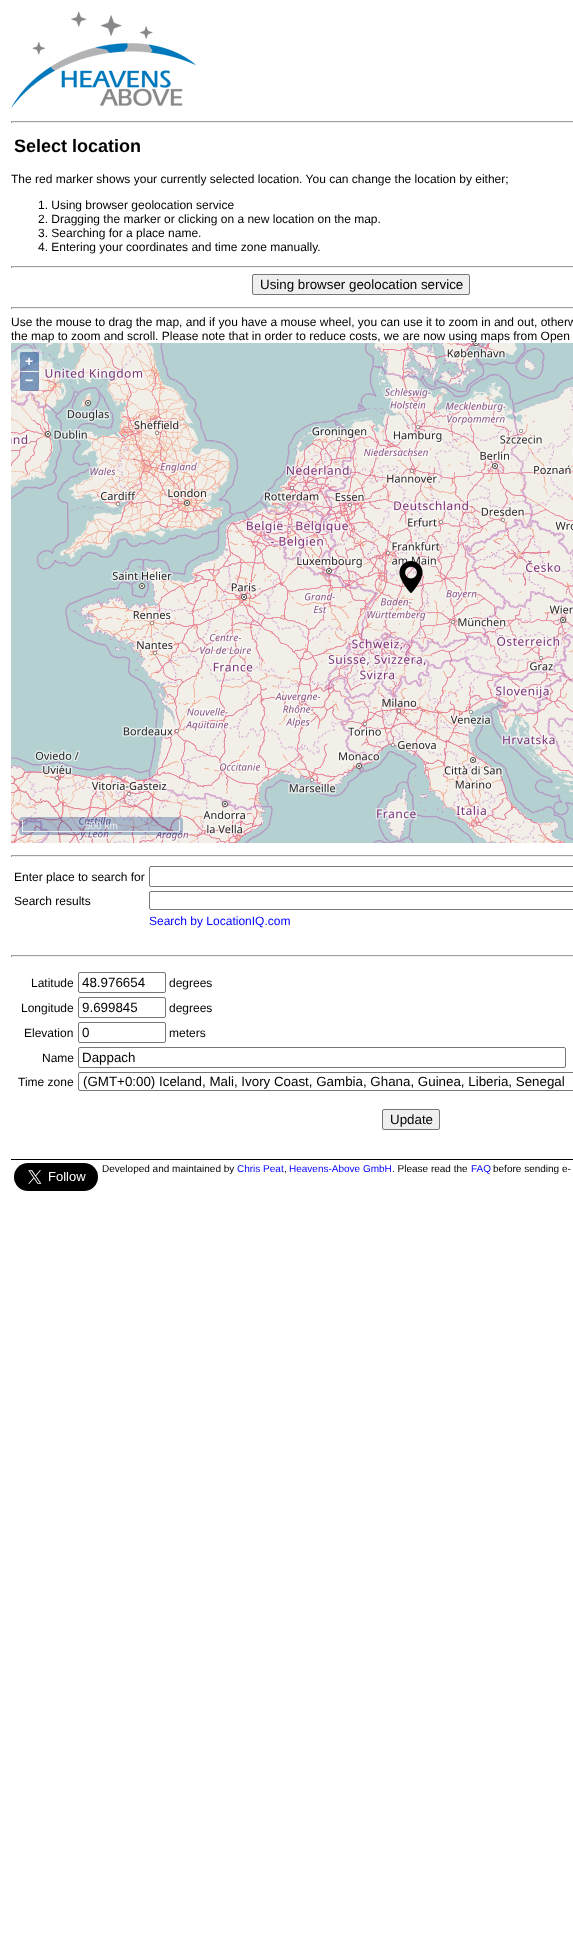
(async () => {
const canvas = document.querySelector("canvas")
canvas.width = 573
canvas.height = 1957
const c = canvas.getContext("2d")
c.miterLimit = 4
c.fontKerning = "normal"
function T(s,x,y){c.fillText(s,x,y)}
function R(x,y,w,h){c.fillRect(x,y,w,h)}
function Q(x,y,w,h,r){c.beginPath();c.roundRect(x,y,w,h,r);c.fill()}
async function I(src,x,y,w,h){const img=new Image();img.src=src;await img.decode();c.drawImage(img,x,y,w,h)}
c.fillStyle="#fff"
R(0,0,573,1957)
await I("1.png",11,11,185,97)
c.fillStyle="#9f9f9f"
R(11,121,562,1)
c.fillStyle="#eee"
R(11,122,562,1)
c.fillStyle="#9f9f9f"
R(11,121,1,2)
c.font="bold 18px Liberation Sans"
c.fillStyle="#000"
T("Select location",14,152)
c.font="12px Liberation Sans"
T("The red marker shows your currently selected location. You can change the location by either;",11,183)
T("1. Using browser geolocation service",38,209)
T("2. Dragging the marker or clicking on a new location on the map.",38,223)
T("3. Searching for a place name.",38,237)
T("4. Entering your coordinates and time zone manually.",38,251)
c.fillStyle="#9f9f9f"
R(11,266,562,1)
c.fillStyle="#eee"
R(11,267,562,1)
c.fillStyle="#9f9f9f"
R(11,266,1,2)
c.fillStyle="#efefef"
c.beginPath()
c.roundRect(252.5,274.5,217,20,1.5)
c.fill()
c.strokeStyle="#767676"
c.stroke()
c.font="13.35px Liberation Sans"
c.fillStyle="#000"
T("Using browser geolocation service",260,289)
c.fillStyle="#9f9f9f"
R(11,307,562,1)
c.fillStyle="#eee"
R(11,308,562,1)
c.fillStyle="#9f9f9f"
R(11,307,1,2)
c.font="12px Liberation Sans"
c.fillStyle="#000"
T("Use the mouse to drag the map, and if you have a mouse wheel, you can use it to zoom in and out, otherw",11,326)
T("the map to zoom and scroll. Please note that in order to reduce costs, we are now using maps from Open",11,340)
await I("2.png",11,343,562,500)
c.fillStyle="#ffffff66"
Q(17,349,25,45,4)
c.fillStyle="#003c8880"
c.beginPath()
c.roundRect(20,352,19,19,[2,2,0,0])
c.fill()
c.font="bold 14px Liberation Sans"
c.fillStyle="#fff"
T("+",25,366)
c.fillStyle="#003c8880"
c.beginPath()
c.roundRect(20,372,19,19,[0,0,2,2])
c.fill()
c.fillStyle="#fff"
T("−",25,385)
c.fillStyle="#003c884d"
Q(19,817,164,18,4)
c.fillStyle="#eee"
R(179,820,1,12)
R(22,831,158,1)
R(22,820,1,12)
c.font="10px Liberation Sans"
T("500 km",85,829)
c.fillStyle="#9f9f9f"
R(11,855,562,1)
c.fillStyle="#eee"
R(11,856,562,1)
c.fillStyle="#9f9f9f"
R(11,855,1,2)
c.font="12px Liberation Sans"
c.fillStyle="#000"
T("Enter place to search for",14,881)
c.beginPath()
c.roundRect(149.5,866.5,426,20,1.5)
c.stroke()
T("Search results",14,905)
c.beginPath()
c.roundRect(149.5,891.5,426,18,1.5)
c.stroke()
c.fillStyle="#00f"
T("Search by LocationIQ.com",149,925)
c.fillStyle="#9f9f9f"
R(11,955,562,1)
c.fillStyle="#eee"
R(11,956,562,1)
c.fillStyle="#9f9f9f"
R(11,955,1,2)
c.fillStyle="#000"
T("Latitude",31,987)
c.beginPath()
c.roundRect(78.5,972.5,87,20,1.5)
c.stroke()
c.font="13.35px Liberation Sans"
T("48.976654",82,987)
c.font="12px Liberation Sans"
T("degrees",169,987)
T("Longitude",21,1012)
c.beginPath()
c.roundRect(78.5,997.5,87,20,1.5)
c.stroke()
c.font="13.35px Liberation Sans"
T("9.699845",82,1012)
c.font="12px Liberation Sans"
T("degrees",169,1012)
T("Elevation",24,1037)
c.beginPath()
c.roundRect(78.5,1022.5,87,20,1.5)
c.stroke()
c.font="13.35px Liberation Sans"
T("0",82,1037)
c.font="12px Liberation Sans"
T("meters",169,1037)
T("Name",42,1062)
c.beginPath()
c.roundRect(78.5,1047.5,487,20,1.5)
c.stroke()
c.font="13.35px Liberation Sans"
T("Dappach",82,1062)
c.font="12px Liberation Sans"
T("Time zone",18,1086)
c.beginPath()
c.roundRect(78.5,1072.5,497,18,1.5)
c.stroke()
c.font="13.35px Liberation Sans"
T("(GMT+0:00) Iceland, Mali, Ivory Coast, Gambia, Ghana, Guinea, Liberia, Senegal",83,1086)
c.fillStyle="#efefef"
c.beginPath()
c.roundRect(382.5,1109.5,57,20,1.5)
c.fill()
c.stroke()
c.fillStyle="#000"
T("Update",390,1124)
R(11,1159,562,1)
await I("3.png",14,1163,84,28)
c.font="10px Liberation Sans"
T("Developed and maintained by",102,1172)
c.fillStyle="#00f"
T("Chris Peat",237,1172)
c.fillStyle="#000"
T(",",284,1172)
c.fillStyle="#00f"
T("Heavens-Above GmbH",289,1172)
c.fillStyle="#000"
T(". Please read the",392,1172)
c.fillStyle="#00f"
T("FAQ",471,1172)
c.fillStyle="#000"
T("before sending e-",493,1172)
})()
